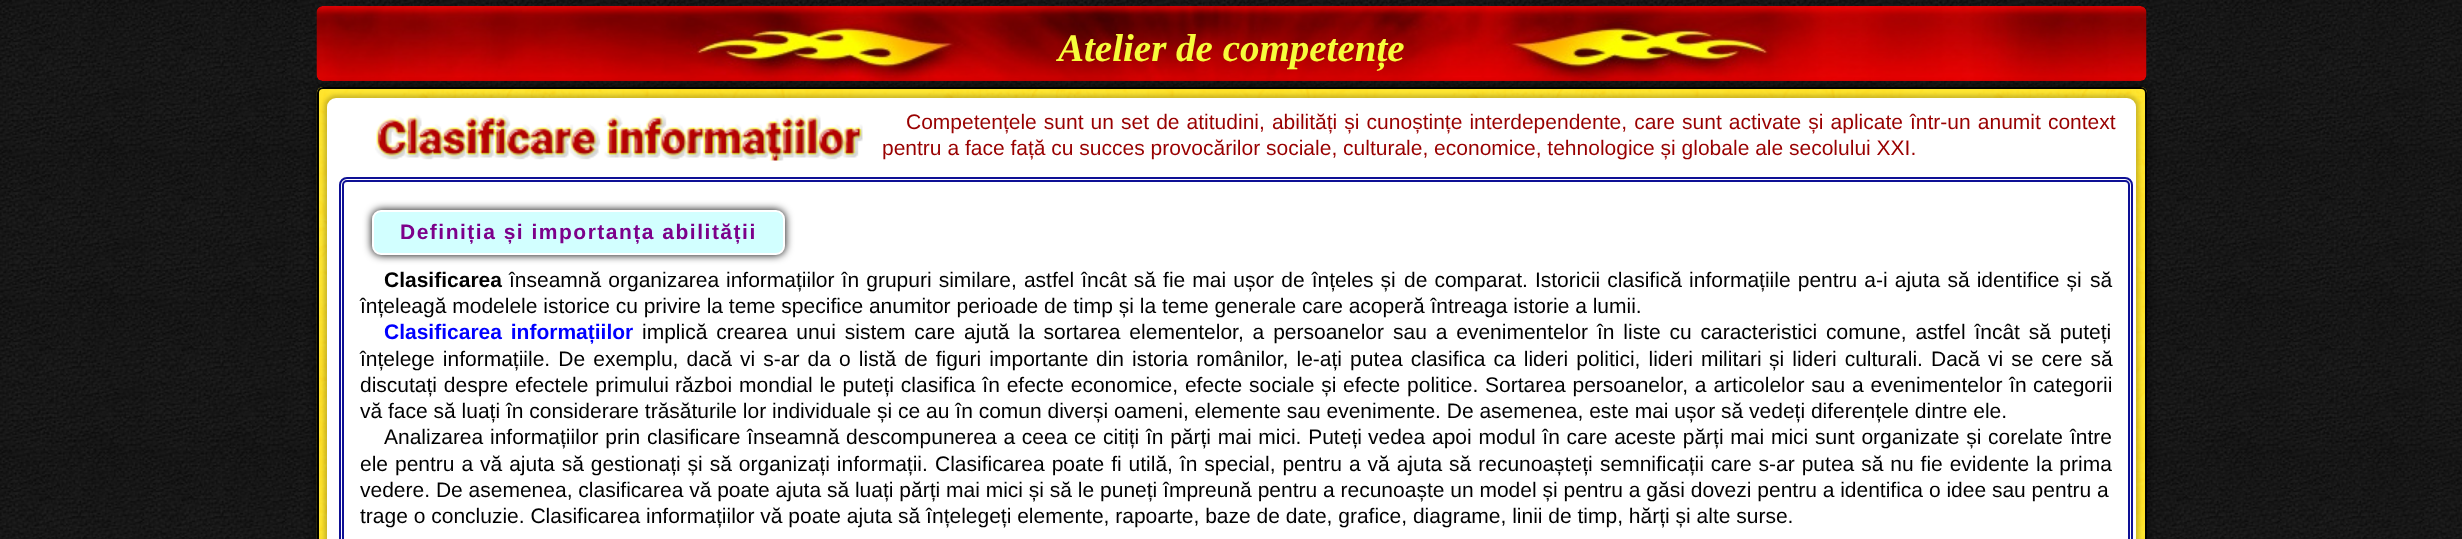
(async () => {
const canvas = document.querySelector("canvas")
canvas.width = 2462
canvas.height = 539
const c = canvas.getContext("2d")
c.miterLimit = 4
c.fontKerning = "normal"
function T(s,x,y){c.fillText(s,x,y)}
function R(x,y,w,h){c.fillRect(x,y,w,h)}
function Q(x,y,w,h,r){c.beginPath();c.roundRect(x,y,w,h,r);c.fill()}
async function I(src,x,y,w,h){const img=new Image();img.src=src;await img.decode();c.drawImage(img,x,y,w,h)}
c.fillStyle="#fff"
R(0,0,2462,539)
await I("1.png",0,0,2462,539)
await I("2.png",316,6,1831,75)
c.font="italic bold 39px Liberation Serif"
c.fillStyle="#f6fc3b"
T("Atelier de competențe",1058,61)
c.fillStyle="#00000066"
c.filter="blur(3px)"
c.beginPath()
c.roundRect(314,84,1836,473,9)
c.fill()
c.filter="none"
c.fillStyle="#ffe229"
Q(317,87,1830,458,6)
await I("3.png",316,87,1830,452)
c.beginPath()
c.roundRect(318,88,1828,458,5)
c.strokeStyle="#000"
c.lineWidth=2
c.stroke()
c.fillStyle="#00000033"
c.filter="blur(2px)"
c.beginPath()
c.roundRect(324,95,1815,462,12)
c.fill()
c.filter="none"
c.fillStyle="#fff"
Q(327,98,1809,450,9)
await I("4.png",375,114,488,47)
c.wordSpacing="1.25px"
c.font="21px Liberation Sans"
c.fillStyle="#900"
T("Competențele sunt un set de atitudini, abilități și cunoștințe interdependente, care sunt activate și aplicate într-un anumit context",906,129)
c.wordSpacing="0px"
T("pentru a face față cu succes provocărilor sociale, culturale, economice, tehnologice și globale ale secolului XXI.",882,155)
c.beginPath()
c.roundRect(340,178,1792,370,7)
c.strokeStyle="#0e1095"
c.stroke()
c.beginPath()
c.roundRect(343,181,1786,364,4)
c.stroke()
c.fillStyle="#000"
c.filter="blur(4.5px)"
c.beginPath()
c.roundRect(372,210,413,45,9)
c.fill()
c.filter="none"
c.fillStyle="#d2ffff"
c.beginPath()
c.roundRect(373,211,411,43,8)
c.fill()
c.strokeStyle="#fff"
c.stroke()
c.letterSpacing="1.5px"
c.font="bold 21px Liberation Sans"
c.fillStyle="#7c008a"
T("Definiția și importanța abilității",400,239)
c.letterSpacing="0px"
c.fillStyle="#000"
T("Clasificarea",384,287)
c.wordSpacing="1.25px"
c.font="21px Liberation Sans"
T("înseamnă organizarea",509,287)
T("informațiilor în grupuri similare, astfel încât să fie mai ușor de înțeles și",726,287)
T("de comparat. Istoricii clasifică informațiile pentru a-i ajuta să identifice și",1404,287)
c.wordSpacing="0px"
T("să",2090,287)
T("înțeleagă modelele istorice cu privire la teme specifice anumitor perioade de timp și la teme generale care acoperă întreaga istorie a lumii.",360,313)
c.wordSpacing="3px"
c.font="bold 21px Liberation Sans"
c.fillStyle="#00f"
T("Clasificarea informațiilor",384,339)
c.font="21px Liberation Sans"
c.fillStyle="#000"
T("implică crearea unui sistem care ajută la sortarea elementelor, a persoanelor",642,339)
T("sau a evenimentelor în liste cu caracteristici comune, astfel încât să puteți",1393,339)
c.wordSpacing="2.25px"
T("înțelege informațiile. De exemplu, dacă vi s-ar da o listă de figuri importante",360,366)
T("din istoria românilor, le-ați putea clasifica ca lideri politici, lideri militari",1096,366)
T("și lideri culturali. Dacă vi se cere să",1769,366)
c.wordSpacing="1px"
T("discutați despre efectele primului",360,392)
T("război mondial le puteți clasifica în efecte economice, efecte sociale și",675,392)
T("efecte politice. Sortarea persoanelor, a articolelor sau a evenimentelor în",1343,392)
c.wordSpacing="0px"
T("categorii",2033,392)
T("vă face să luați în considerare trăsăturile lor individuale și ce au în comun diverși oameni, elemente sau evenimente. De asemenea, este mai ușor să vedeți diferențele dintre ele.",360,418)
c.wordSpacing="0.9px"
T("Analizarea informațiilor prin",384,444)
T("clasificare înseamnă descompunerea a ceea ce citiți în părți mai mici. Puteți",647,444)
T("vedea apoi modul în care aceste părți mai mici sunt organizate și corelate",1368,444)
c.wordSpacing="0px"
T("între",2070,444)
c.wordSpacing="1.1px"
T("ele pentru a vă ajuta să gestionați și să organizați informații.",360,471)
T("Clasificarea poate fi utilă, în special, pentru a vă ajuta să recunoașteți",935,471)
T("semnificații care s-ar putea să nu fie evidente la prima",1600,471)
c.wordSpacing="0px"
T("vedere. De asemenea, clasificarea vă poate ajuta să luați părți mai mici și să le puneți împreună pentru a recunoaște un model și pentru a găsi dovezi pentru a identifica o idee sau pentru a",360,497)
T("trage o concluzie. Clasificarea informațiilor vă poate ajuta să înțelegeți elemente, rapoarte, baze de date, grafice, diagrame, linii de timp, hărți și alte surse.",360,523)
})()
